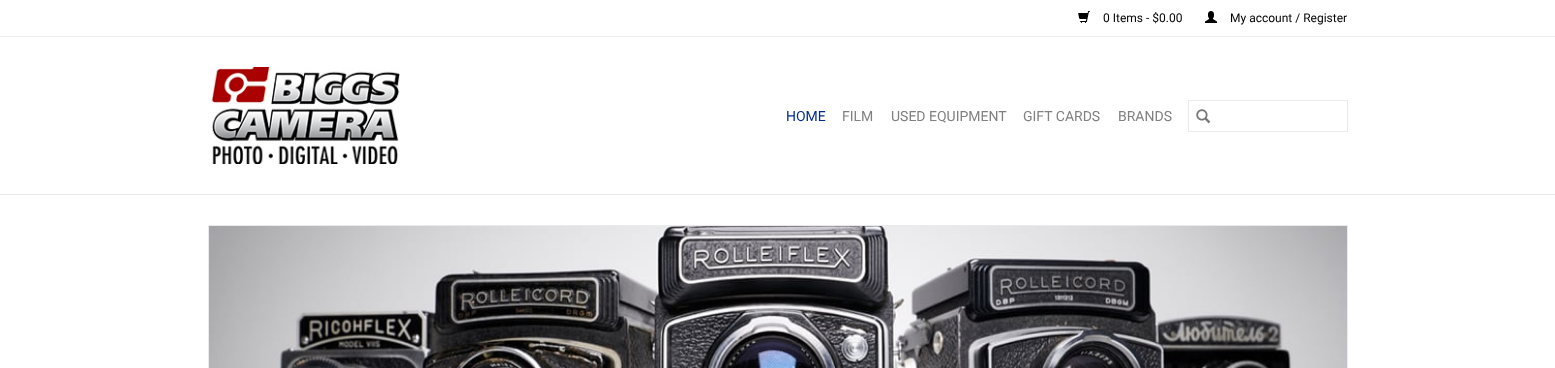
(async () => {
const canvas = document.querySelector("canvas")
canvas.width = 1555
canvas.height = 368
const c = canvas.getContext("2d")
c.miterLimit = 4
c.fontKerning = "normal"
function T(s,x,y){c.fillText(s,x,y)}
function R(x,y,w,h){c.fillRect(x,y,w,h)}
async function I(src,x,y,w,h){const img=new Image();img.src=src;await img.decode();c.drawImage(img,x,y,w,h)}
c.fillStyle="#fff"
R(0,0,1555,368)
c.fillStyle="#eaeaea"
R(0,194,1555,1)
c.fillStyle="#ededed"
R(0,36,1555,1)
await I("1.png",1078,11,12,12)
c.font="12px Roboto"
c.fillStyle="#000"
T("0 Items - $0.00",1103,22)
await I("2.png",1205,11,12,12)
T("My account / Register",1230,22)
await I("3.png",211,67,189,97)
c.font="14px Roboto"
c.fillStyle="#002c8e"
T("HOME",786,121)
c.fillStyle="#808080"
T("FILM",842,121)
T("USED EQUIPMENT",891,121)
T("GIFT CARDS",1023,121)
T("BRANDS",1118,121)
c.strokeStyle="#eaeaea"
c.strokeRect(1188.5,100.5,159,31)
await I("4.png",1196,109,15,15)
c.strokeRect(208.5,225.5,1139,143)
await I("5.png",209,226,1138,142)
})()
